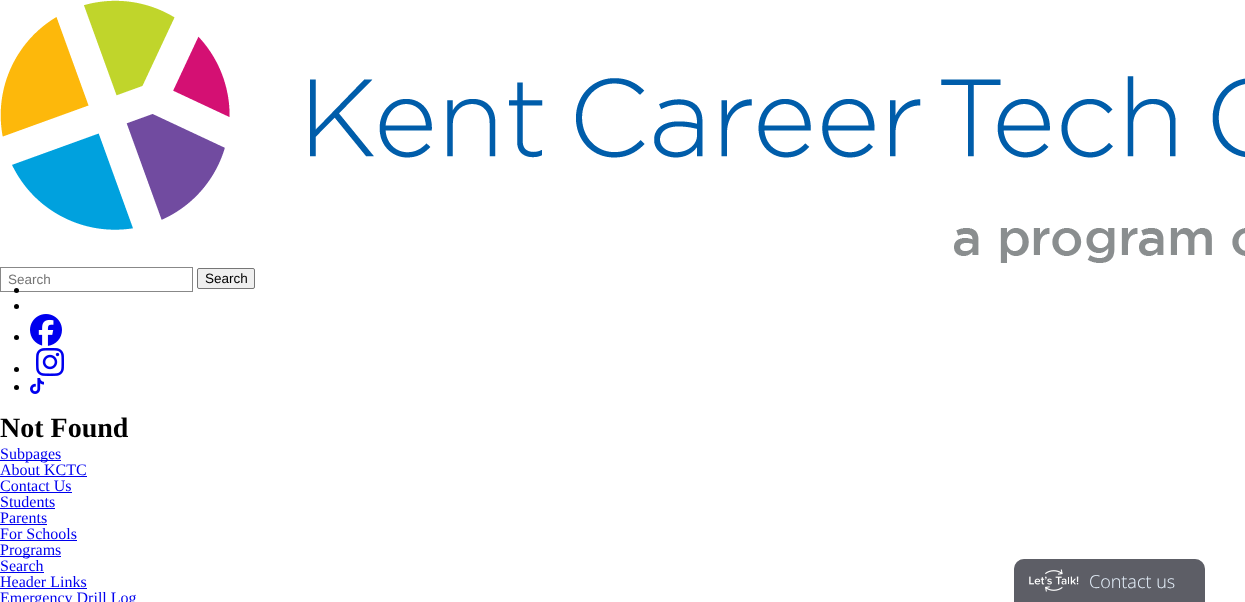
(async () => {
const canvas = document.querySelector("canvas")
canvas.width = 1245
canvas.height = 602
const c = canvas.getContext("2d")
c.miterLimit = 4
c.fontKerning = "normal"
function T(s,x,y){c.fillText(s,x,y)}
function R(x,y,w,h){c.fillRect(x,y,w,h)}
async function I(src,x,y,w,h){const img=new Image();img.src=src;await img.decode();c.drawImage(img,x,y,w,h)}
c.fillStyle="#fff"
R(0,0,1245,602)
await I("1.png",0,0,1245,263)
c.strokeStyle="#888"
c.strokeRect(.5,267.5,192,24)
c.font="13.5px Liberation Sans"
c.fillStyle="#757575"
T("Search",8,284)
c.fillStyle="#efefef"
c.beginPath()
c.roundRect(197.5,268.5,57,20,1.5)
c.fill()
c.strokeStyle="#767676"
c.stroke()
c.fillStyle="#000"
T("Search",205,283)
c.beginPath()
c.arc(16.5,290.5,2.5,0,7)
c.fill()
c.beginPath()
c.arc(16.5,306.5,2.5,0,7)
c.fill()
c.beginPath()
c.arc(16.5,337.5,2.5,0,7)
c.fill()
await I("2.png",30,314,32,32)
c.beginPath()
c.arc(16.5,369.5,2.5,0,7)
c.fill()
await I("3.png",36,348,28,28)
c.beginPath()
c.arc(16.5,387.5,2.5,0,7)
c.fill()
await I("4.png",30,378,14,16)
c.font="bold 28px Liberation Serif"
T("Not Found",0,437)
c.fillStyle="#00e"
R(0,460,61,1)
c.font="16px Liberation Serif"
T("Subpages",0,459)
T("About KCTC",0,475)
R(0,476,87,1)
T("Contact Us",0,491)
R(0,492,72,1)
T("Students",0,507)
R(0,508,55,1)
T("Parents",0,523)
R(0,524,47,1)
T("For Schools",0,539)
R(0,540,77,1)
R(0,556,61,1)
T("Programs",0,555)
T("Search",0,571)
R(0,572,44,1)
T("Header Links",0,587)
R(0,588,87,1)
T("Emergency Drill Log",0,603)
c.fillStyle="#00000038"
c.filter="blur(0.5px)"
c.beginPath()
c.roundRect(1014,559,191,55,10)
c.fill()
c.filter="none"
c.fillStyle="#5d5e66"
c.beginPath()
c.roundRect(1014,559,191,43,[10,10,0,0])
c.fill()
await I("5.png",1029,569,50,23)
c.font="300 18px Open Sans"
c.fillStyle="#e9f4ff"
T("Contact us",1089,588)
})()
